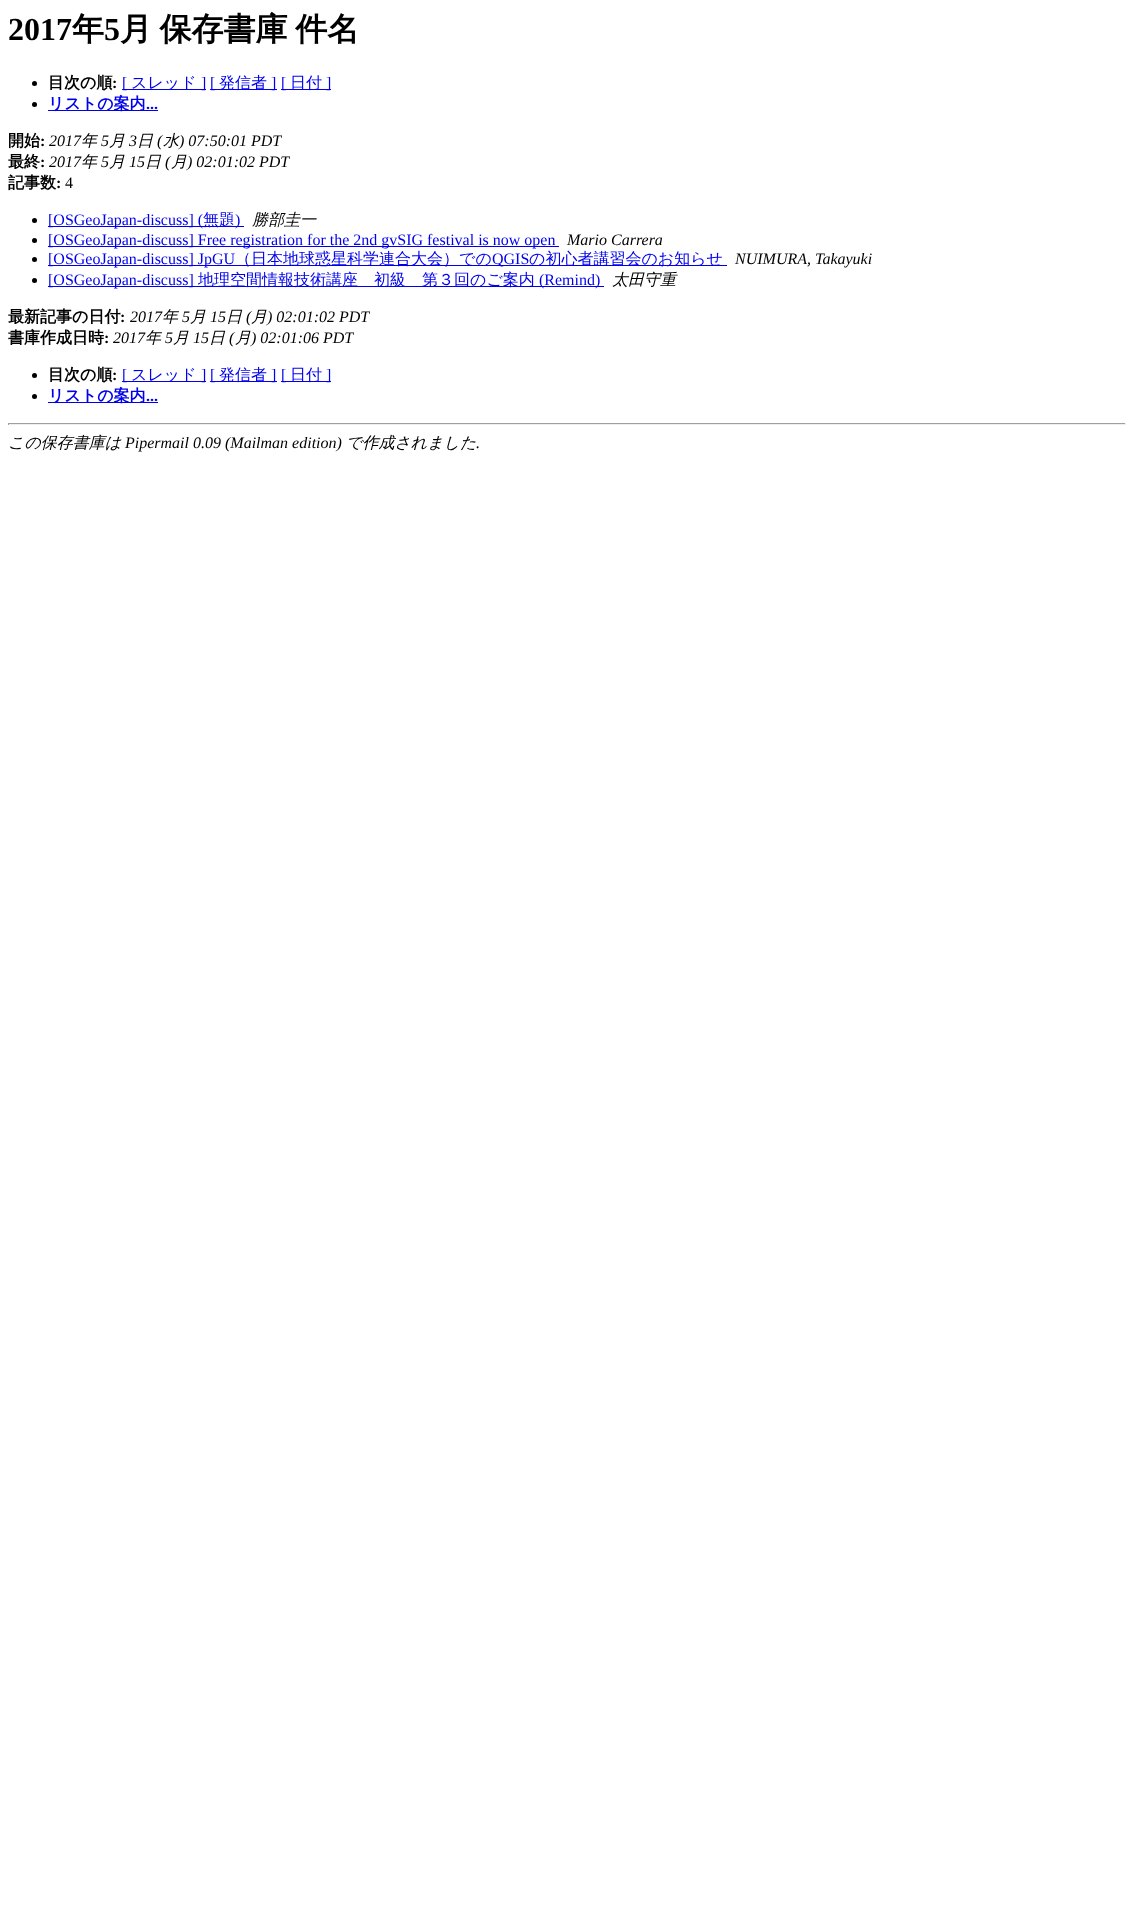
(async () => {
const canvas = document.querySelector("canvas")
canvas.width = 1134
canvas.height = 1907
const c = canvas.getContext("2d")
c.miterLimit = 4
c.fontKerning = "normal"
function T(s,x,y){c.fillText(s,x,y)}
function R(x,y,w,h){c.fillRect(x,y,w,h)}
c.fillStyle="#fff"
R(0,0,1134,1907)
c.font="bold 32px Liberation Serif"
c.fillStyle="#000"
T("2017",8,40)
c.font="bold 32px WenQuanYi Zen Hei"
T("年",72,40)
c.font="bold 32px Liberation Serif"
T("5",104,40)
c.wordSpacing="-2px"
c.font="bold 32px WenQuanYi Zen Hei"
T("月 保存書庫 件名",120,40)
c.beginPath()
c.arc(34.5,83.5,2.5,0,7)
c.fill()
c.wordSpacing="0px"
c.font="bold 16px WenQuanYi Zen Hei"
T("目次の順",48,88)
c.font="bold 16px Liberation Serif"
T(":",112,88)
c.fillStyle="#00e"
R(122,89,84,1)
c.font="16px Liberation Serif"
T("[",122,88)
c.font="500 16px WenQuanYi Zen Hei"
T("スレッド",131,88)
c.font="16px Liberation Serif"
T("]",201,88)
R(210,89,67,1)
T("[",210,88)
c.font="500 16px WenQuanYi Zen Hei"
T("発信者",219,88)
c.font="16px Liberation Serif"
T("]",271,88)
R(281,89,50,1)
T("[",281,88)
c.font="500 16px WenQuanYi Zen Hei"
T("日付",290,88)
c.font="16px Liberation Serif"
T("]",326,88)
c.fillStyle="#000"
c.beginPath()
c.arc(34.5,104.5,2.5,0,7)
c.fill()
c.fillStyle="#00e"
R(48,110,110,1)
c.font="bold 16px WenQuanYi Zen Hei"
T("リストの案内",48,109)
c.font="bold 16px Liberation Serif"
T("...",146,109)
c.font="bold 16px WenQuanYi Zen Hei"
c.fillStyle="#000"
T("開始",8,146)
c.font="bold 16px Liberation Serif"
T(":",40,146)
c.font="italic 16px Liberation Serif"
T("2017",49,146)
c.font="italic 500 16px WenQuanYi Zen Hei"
T("年",81,146)
c.font="italic 16px Liberation Serif"
T("5",101,146)
c.font="italic 500 16px WenQuanYi Zen Hei"
T("月",109,146)
c.font="italic 16px Liberation Serif"
T("3",129,146)
c.font="italic 500 16px WenQuanYi Zen Hei"
T("日",137,146)
c.font="italic 16px Liberation Serif"
T("(",157,146)
c.font="italic 500 16px WenQuanYi Zen Hei"
T("水",163,146)
c.font="italic 16px Liberation Serif"
T(") 07:50:01 PDT",179,146)
c.font="bold 16px WenQuanYi Zen Hei"
T("最終",8,167)
c.font="bold 16px Liberation Serif"
T(":",40,167)
c.font="italic 16px Liberation Serif"
T("2017",49,167)
c.font="italic 500 16px WenQuanYi Zen Hei"
T("年",81,167)
c.font="italic 16px Liberation Serif"
T("5",101,167)
c.font="italic 500 16px WenQuanYi Zen Hei"
T("月",109,167)
c.font="italic 16px Liberation Serif"
T("15",129,167)
c.font="italic 500 16px WenQuanYi Zen Hei"
T("日",145,167)
c.font="italic 16px Liberation Serif"
T("(",165,167)
c.font="italic 500 16px WenQuanYi Zen Hei"
T("月",171,167)
c.font="italic 16px Liberation Serif"
T(") 02:01:02 PDT",187,167)
c.font="bold 16px WenQuanYi Zen Hei"
T("記事数",8,188)
c.font="bold 16px Liberation Serif"
T(":",56,188)
c.font="16px Liberation Serif"
T("4",65,188)
c.beginPath()
c.arc(34.5,220.5,2.5,0,7)
c.fill()
c.fillStyle="#00e"
R(48,226,196,1)
T("[OSGeoJapan-discuss] (",48,225)
c.font="500 16px WenQuanYi Zen Hei"
T("無題",203,225)
c.font="16px Liberation Serif"
T(")",235,225)
c.font="italic 500 16px WenQuanYi Zen Hei"
c.fillStyle="#000"
T("勝部圭一",252,225)
c.beginPath()
c.arc(34.5,240.5,2.5,0,7)
c.fill()
c.fillStyle="#00e"
R(48,246,511,1)
c.font="16px Liberation Serif"
T("[OSGeoJapan-discuss] Free registration for the 2nd gvSIG festival is now open",48,245)
c.font="italic 16px Liberation Serif"
c.fillStyle="#000"
T("Mario Carrera",567,245)
c.beginPath()
c.arc(34.5,259.5,2.5,0,7)
c.fill()
c.fillStyle="#00e"
R(48,265,679,1)
c.font="16px Liberation Serif"
T("[OSGeoJapan-discuss] JpGU",48,264)
c.font="500 16px WenQuanYi Zen Hei"
T("（日本地球惑星科学連合大会）での",235,264)
c.font="16px Liberation Serif"
T("QGIS",492,264)
c.font="500 16px WenQuanYi Zen Hei"
T("の初心者講習会のお知らせ",529,264)
c.font="italic 16px Liberation Serif"
c.fillStyle="#000"
T("NUIMURA, Takayuki",735,264)
c.beginPath()
c.arc(34.5,280.5,2.5,0,7)
c.fill()
c.fillStyle="#00e"
R(48,286,556,1)
c.font="16px Liberation Serif"
T("[OSGeoJapan-discuss]",48,285)
c.font="500 16px WenQuanYi Zen Hei"
T("地理空間情報技術講座　初級　第３回のご案内",198,285)
c.font="16px Liberation Serif"
T("(Remind)",539,285)
c.font="italic 500 16px WenQuanYi Zen Hei"
c.fillStyle="#000"
T("太田守重",612,285)
c.font="bold 16px WenQuanYi Zen Hei"
T("最新記事の日付",8,322)
c.font="bold 16px Liberation Serif"
T(":",120,322)
c.font="italic 16px Liberation Serif"
T("2017",130,322)
c.font="italic 500 16px WenQuanYi Zen Hei"
T("年",162,322)
c.font="italic 16px Liberation Serif"
T("5",182,322)
c.font="italic 500 16px WenQuanYi Zen Hei"
T("月",190,322)
c.font="italic 16px Liberation Serif"
T("15",210,322)
c.font="italic 500 16px WenQuanYi Zen Hei"
T("日",226,322)
c.font="italic 16px Liberation Serif"
T("(",246,322)
c.font="italic 500 16px WenQuanYi Zen Hei"
T("月",251,322)
c.font="italic 16px Liberation Serif"
T(") 02:01:02 PDT",267,322)
c.font="bold 16px WenQuanYi Zen Hei"
T("書庫作成日時",8,343)
c.font="bold 16px Liberation Serif"
T(":",104,343)
c.font="italic 16px Liberation Serif"
T("2017",113,343)
c.font="italic 500 16px WenQuanYi Zen Hei"
T("年",145,343)
c.font="italic 16px Liberation Serif"
T("5",165,343)
c.font="italic 500 16px WenQuanYi Zen Hei"
T("月",173,343)
c.font="italic 16px Liberation Serif"
T("15",193,343)
c.font="italic 500 16px WenQuanYi Zen Hei"
T("日",209,343)
c.font="italic 16px Liberation Serif"
T("(",229,343)
c.font="italic 500 16px WenQuanYi Zen Hei"
T("月",235,343)
c.font="italic 16px Liberation Serif"
T(") 02:01:06 PDT",251,343)
c.beginPath()
c.arc(34.5,375.5,2.5,0,7)
c.fill()
c.font="bold 16px WenQuanYi Zen Hei"
T("目次の順",48,380)
c.font="bold 16px Liberation Serif"
T(":",112,380)
c.fillStyle="#00e"
R(122,381,84,1)
c.font="16px Liberation Serif"
T("[",122,380)
c.font="500 16px WenQuanYi Zen Hei"
T("スレッド",131,380)
c.font="16px Liberation Serif"
T("]",201,380)
R(210,381,67,1)
T("[",210,380)
c.font="500 16px WenQuanYi Zen Hei"
T("発信者",219,380)
c.font="16px Liberation Serif"
T("]",271,380)
R(281,381,50,1)
T("[",281,380)
c.font="500 16px WenQuanYi Zen Hei"
T("日付",290,380)
c.font="16px Liberation Serif"
T("]",326,380)
c.fillStyle="#000"
c.beginPath()
c.arc(34.5,396.5,2.5,0,7)
c.fill()
c.fillStyle="#00e"
R(48,402,110,1)
c.font="bold 16px WenQuanYi Zen Hei"
T("リストの案内",48,401)
c.font="bold 16px Liberation Serif"
T("...",146,401)
c.fillStyle="#9f9f9f"
R(8,423,1118,1)
c.fillStyle="#eee"
R(1125,423,1,2)
R(8,424,1118,1)
c.fillStyle="#9f9f9f"
R(8,423,1,2)
c.font="italic 500 16px WenQuanYi Zen Hei"
c.fillStyle="#000"
T("この保存書庫は",8,448)
c.font="italic 16px Liberation Serif"
T("Pipermail 0.09 (Mailman edition)",125,448)
c.font="italic 500 16px WenQuanYi Zen Hei"
T("で作成されました",346,448)
c.font="italic 16px Liberation Serif"
T(".",476,448)
})()
